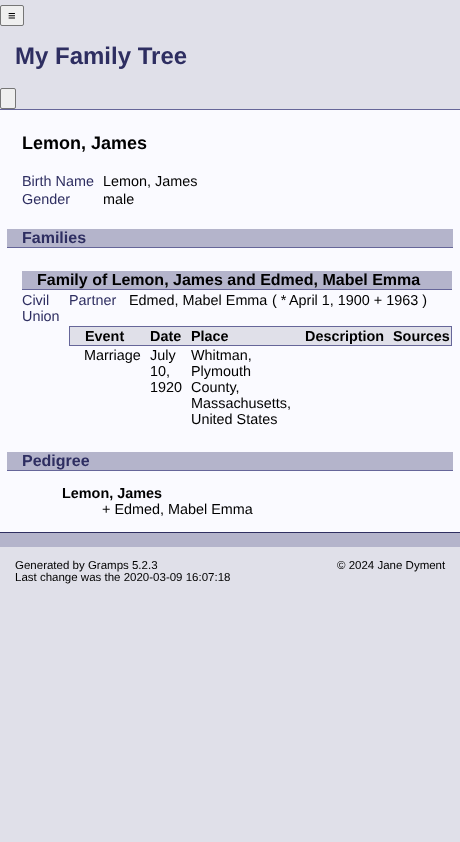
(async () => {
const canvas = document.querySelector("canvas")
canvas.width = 460
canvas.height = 842
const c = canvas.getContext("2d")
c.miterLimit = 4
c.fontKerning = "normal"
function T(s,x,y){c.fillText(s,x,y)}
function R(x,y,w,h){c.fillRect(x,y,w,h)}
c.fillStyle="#e0e0e9"
R(0,0,460,842)
c.fillStyle="#efefef"
c.beginPath()
c.roundRect(.5,5.5,23,20,1.5)
c.fill()
c.strokeStyle="#767676"
c.stroke()
c.font="13px Liberation Sans"
c.fillStyle="#000"
T("≡",8,20)
c.font="bold 24px Liberation Sans"
c.fillStyle="#2e2e61"
T("My Family Tree",15,64)
c.fillStyle="#efefef"
c.beginPath()
c.roundRect(.5,88.5,15,20,1.5)
c.fill()
c.stroke()
c.fillStyle="#fafaff"
R(0,110,460,422)
c.fillStyle="#669"
R(0,109,460,1)
c.font="bold 18px Liberation Sans"
c.fillStyle="#000"
T("Lemon, James",22,149)
c.font="14.4px Liberation Sans"
c.fillStyle="#2e2e61"
T("Birth Name",22,186)
c.fillStyle="#000"
T("Lemon, James",103,186)
c.fillStyle="#2e2e61"
T("Gender",22,204)
c.fillStyle="#000"
T("male",103,204)
c.fillStyle="#b4b4cb"
R(7,229,446,18)
c.fillStyle="#669"
R(7,247,446,1)
c.font="bold 16px Liberation Sans"
c.fillStyle="#2e2e61"
T("Families",22,243)
c.fillStyle="#b4b4cb"
R(22,271,430,18)
c.fillStyle="#669"
R(22,289,430,1)
c.fillStyle="#000"
T("Family of Lemon, James and Edmed, Mabel Emma",37,285)
c.font="14.4px Liberation Sans"
c.fillStyle="#2e2e61"
T("Civil",22,305)
T("Union",22,321)
T("Partner",69,305)
c.fillStyle="#000"
T("Edmed, Mabel Emma",129,305)
T("( *",272,305)
T("April 1, 1900 + 1963 )",289,305)
c.fillStyle="#e0e0e9"
R(70,327,381,18)
c.fillStyle="#669"
R(69,326,383,1)
R(451,326,1,20)
R(69,345,383,1)
R(69,326,1,20)
c.font="bold 14.4px Liberation Sans"
c.fillStyle="#000"
T("Event",85,341)
T("Date",150,341)
T("Place",191,341)
T("Description",305,341)
T("Sources",393,341)
c.font="14.4px Liberation Sans"
T("Marriage",84,360)
T("July",150,360)
T("10,",150,376)
T("1920",150,392)
T("Whitman,",191,360)
T("Plymouth",191,376)
T("County,",191,392)
T("Massachusetts,",191,408)
T("United States",191,424)
c.fillStyle="#b4b4cb"
R(7,452,446,18)
c.fillStyle="#669"
R(7,470,446,1)
c.font="bold 16px Liberation Sans"
c.fillStyle="#2e2e61"
T("Pedigree",22,466)
c.font="bold 14.4px Liberation Sans"
c.fillStyle="#000"
T("Lemon, James",62,498)
c.font="14.4px Liberation Sans"
T("+ Edmed, Mabel Emma",102,514)
c.fillStyle="#b4b4cb"
R(0,533,460,14)
c.fillStyle="#2e2e61"
R(0,532,460,1)
c.font="11.5px Liberation Sans"
c.fillStyle="#000"
T("Generated by Gramps 5.2.3",15,569)
T("Last change was the 2020-03-09 16:07:18",15,581)
T("© 2024 Jane Dyment",337,569)
})()
